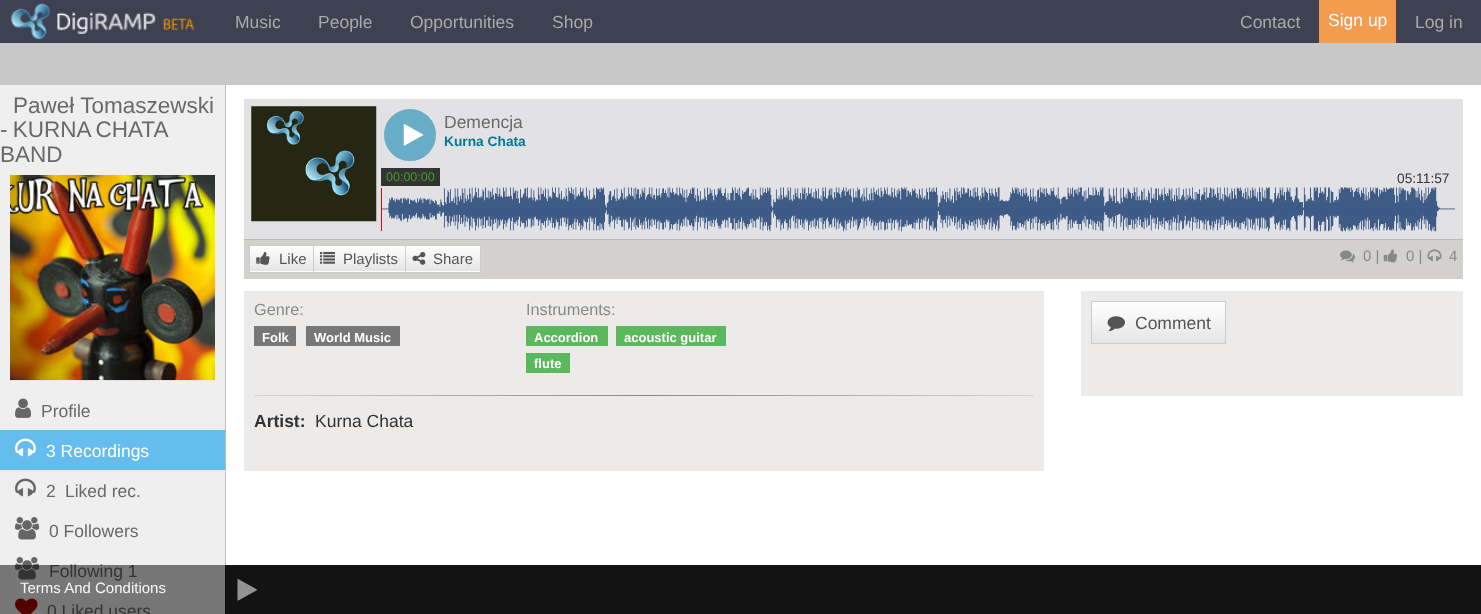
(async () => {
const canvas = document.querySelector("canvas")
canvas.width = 1481
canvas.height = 614
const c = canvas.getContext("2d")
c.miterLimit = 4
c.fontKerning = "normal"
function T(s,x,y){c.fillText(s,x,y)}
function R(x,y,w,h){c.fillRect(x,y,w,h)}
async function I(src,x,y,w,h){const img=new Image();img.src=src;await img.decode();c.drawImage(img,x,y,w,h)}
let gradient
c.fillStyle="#fff"
R(0,0,1481,614)
c.fillStyle="#bbb"
c.filter="blur(0.5px)"
c.beginPath()
c.rect(1,0,225,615)
c.fill()
c.filter="none"
c.fillStyle="#3d4152"
R(0,0,1481,43)
await I("1.png",11,3,183,36)
c.font="17.5px Liberation Sans"
c.fillStyle="#aaa"
T("Music",235,28)
T("People",318,28)
T("Opportunities",410,28)
T("Shop",552,28)
T("Contact",1240,28)
c.fillStyle="#f49b4e"
R(1319,0,77,43)
c.fillStyle="#fff"
T("Sign up",1328,26)
c.fillStyle="#aaa"
T("Log in",1415,28)
c.fillStyle="#c8c8c8"
R(0,43,1481,42)
c.fillStyle="#efefef"
R(0,85,225,529)
c.font="22.5px Liberation Sans"
c.fillStyle="#696969"
T("Paweł Tomaszewski",13,113)
c.wordSpacing="-1px"
T("- KURNA CHATA",0,137)
c.wordSpacing="0px"
T("BAND",0,162)
await I("2.png",10,175,205,206)
await I("3.png",15,398,17,20)
c.font="17.5px Liberation Sans"
T("Profile",41,417)
c.fillStyle="#65bdee"
R(0,430,225,40)
await I("4.png",15,438,21,19)
c.fillStyle="#fff"
T("3 Recordings",46,457)
await I("5.png",15,478,21,19)
c.fillStyle="#696969"
T("2",46,497)
T("Liked rec.",65,497)
await I("6.png",15,517,25,23)
T("0 Followers",49,537)
await I("6.png",15,557,25,23)
T("Following 1",49,577)
await I("7.png",15,598,23,16)
T("0 Liked users",47,617)
c.fillStyle="#00000080"
R(0,565,1481,49)
c.font="15px Liberation Sans"
c.fillStyle="#f7f7f7"
T("Terms And Conditions",20,593)
c.fillStyle="#e2e2e5"
R(244,99,1219,140)
await I("8.png",251,106,126,116)
c.fillStyle="#69acc8"
c.beginPath()
c.arc(410,135,24.5,0,7)
c.fill()
c.strokeStyle="#69acc8"
c.lineWidth=3
c.stroke()
await I("9.png",403,124,21,22)
c.font="17.5px Liberation Sans"
c.fillStyle="#696969"
T("Demencja",444,128)
c.font="bold 13.75px Liberation Sans"
c.fillStyle="#007a92"
T("Kurna Chata",444,146)
c.fillStyle="#333"
R(381,168,59,18)
c.font="12.5px Liberation Sans"
c.fillStyle="#469e28"
T("00:00:00",386,181)
c.font="13.75px Liberation Sans"
c.fillStyle="#333"
T("05:11:57",1397,183)
c.fillStyle="#f00"
R(381,188,1,43)
await I("10.png",382,187,1073,45)
c.fillStyle="#d3d1ce"
R(244,240,1219,39)
c.fillStyle="#bbb"
R(244,239,1219,1)
c.fillStyle="#fff"
R(250,271,63,1)
gradient = c.createLinearGradient(281,246,281,271)
gradient.addColorStop(0,"#fff")
gradient.addColorStop(1,"#e5e5e5")
c.fillStyle = gradient
R(250,246,63,25)
c.strokeStyle="#ccc"
c.lineWidth=1
c.strokeRect(249.5,245.5,64,27)
await I("11.png",256,252,14,13)
c.font="15px Liberation Sans"
c.fillStyle="#555"
T("Like",279,264)
c.fillStyle="#fff"
R(314,271,91,1)
gradient = c.createLinearGradient(359,246,359,271)
gradient.addColorStop(0,"#fff")
gradient.addColorStop(1,"#e5e5e5")
c.fillStyle = gradient
R(314,246,91,25)
c.strokeRect(313.5,245.5,92,27)
await I("12.png",320,251,15,13)
c.fillStyle="#555"
T("Playlists",343,264)
c.fillStyle="#fff"
R(406,271,74,1)
gradient = c.createLinearGradient(443,246,443,271)
gradient.addColorStop(0,"#fff")
gradient.addColorStop(1,"#e5e5e5")
c.fillStyle = gradient
R(406,246,74,25)
c.strokeRect(405.5,245.5,75,27)
await I("13.png",412,252,14,13)
c.fillStyle="#555"
T("Share",433,264)
await I("14.png",1340,250,15,13)
c.fillStyle="#888"
T("0 |",1363,261)
await I("15.png",1383,249,15,14)
T("0 |",1406,261)
await I("16.png",1427,249,15,13)
T("4",1449,261)
c.fillStyle="#ecebea"
R(244,291,800,180)
c.font="16.25px Liberation Sans"
c.fillStyle="#888"
T("Genre:",254,315)
c.fillStyle="#777"
R(254,326,42,20)
c.font="bold 13px Liberation Sans"
c.fillStyle="#fff"
T("Folk",262,342)
c.fillStyle="#777"
R(306,326,94,20)
c.fillStyle="#fff"
T("World Music",314,342)
c.font="16.25px Liberation Sans"
c.fillStyle="#888"
T("Instruments:",526,315)
c.fillStyle="#5cb85c"
R(526,326,82,20)
c.font="bold 13px Liberation Sans"
c.fillStyle="#fff"
T("Accordion",534,342)
c.fillStyle="#5cb85c"
R(616,326,110,20)
c.fillStyle="#fff"
T("acoustic guitar",624,342)
c.fillStyle="#5cb85c"
R(526,353,44,20)
c.fillStyle="#fff"
T("flute",534,368)
gradient = c.createLinearGradient(254,395,1034,395)
gradient.addColorStop(0,"#d6d6d6")
gradient.addColorStop(.5,"#888")
gradient.addColorStop(1,"#d6d6d6")
c.fillStyle = gradient
R(254,395,780,1)
c.font="bold 17.5px Liberation Sans"
c.fillStyle="#333"
T("Artist:",254,427)
c.font="17.5px Liberation Sans"
T("Kurna Chata",315,427)
c.fillStyle="#ecebea"
R(1081,291,382,105)
c.fillStyle="#fff"
R(1092,302,133,1)
gradient = c.createLinearGradient(1159,303,1159,343)
gradient.addColorStop(0,"#fff")
gradient.addColorStop(1,"#e5e5e5")
c.fillStyle = gradient
R(1092,303,133,40)
c.strokeRect(1091.5,301.5,134,42)
await I("17.png",1107,316,18,16)
c.fillStyle="#555"
T("Comment",1135,329)
c.fillStyle="#000000d9"
R(225,565,1256,49)
await I("18.png",237,579,21,22)
})()
